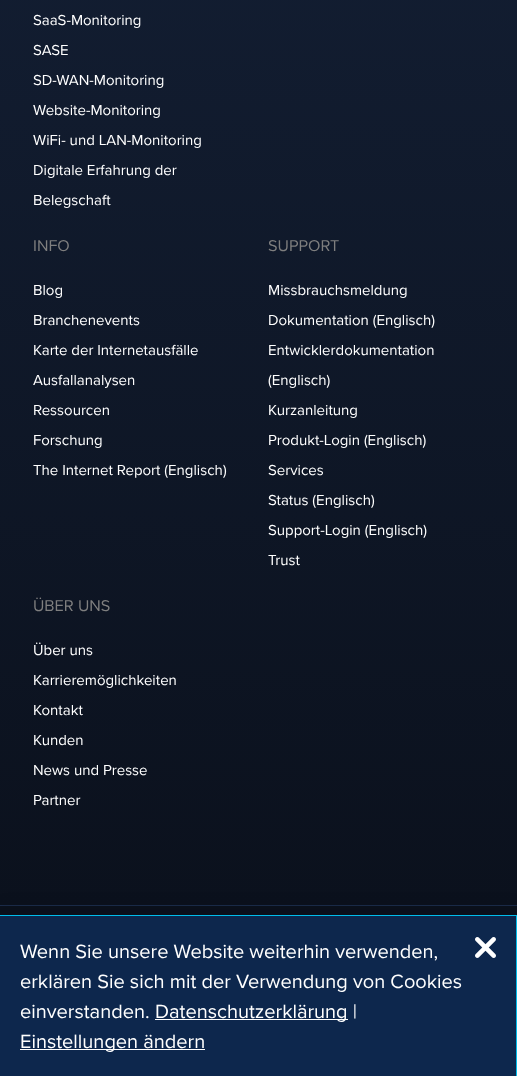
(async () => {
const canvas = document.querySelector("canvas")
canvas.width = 517
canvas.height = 1076
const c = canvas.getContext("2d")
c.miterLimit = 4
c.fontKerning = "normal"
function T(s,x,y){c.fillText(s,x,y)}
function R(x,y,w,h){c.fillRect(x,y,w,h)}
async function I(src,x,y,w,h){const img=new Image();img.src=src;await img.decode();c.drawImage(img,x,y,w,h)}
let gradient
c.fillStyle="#fff"
R(0,0,517,1076)
gradient = c.createLinearGradient(259,-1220,259,905)
gradient.addColorStop(0,"#1b2c4a")
gradient.addColorStop(1,"#0b111d")
c.fillStyle = gradient
R(0,0,517,905)
c.font="15px Proxima Nova"
c.fillStyle="#fff"
T("SaaS-Monitoring",33,25)
T("SASE",33,55)
T("SD-WAN-Monitoring",33,85)
T("Website-Monitoring",33,115)
T("WiFi- und LAN-Monitoring",33,145)
T("Digitale Erfahrung der",33,175)
T("Belegschaft",33,205)
c.font="16.25px Proxima Nova"
c.fillStyle="#7f7f7f"
T("INFO",33,251)
c.font="15px Proxima Nova"
c.fillStyle="#fff"
T("Blog",33,295)
T("Branchenevents",33,325)
T("Karte der Internetausfälle",33,355)
T("Ausfallanalysen",33,385)
T("Ressourcen",33,415)
T("Forschung",33,445)
T("The Internet Report (Englisch)",33,475)
c.font="16.25px Proxima Nova"
c.fillStyle="#7f7f7f"
T("SUPPORT",268,251)
c.font="15px Proxima Nova"
c.fillStyle="#fff"
T("Missbrauchsmeldung",268,295)
T("Dokumentation (Englisch)",268,325)
T("Entwicklerdokumentation",268,355)
T("(Englisch)",268,385)
T("Kurzanleitung",268,415)
T("Produkt-Login (Englisch)",268,445)
T("Services",268,475)
T("Status (Englisch)",268,505)
T("Support-Login (Englisch)",268,535)
T("Trust",268,565)
c.font="16.25px Proxima Nova"
c.fillStyle="#7f7f7f"
T("ÜBER UNS",33,611)
c.font="15px Proxima Nova"
c.fillStyle="#fff"
T("Über uns",33,655)
T("Karrieremöglichkeiten",33,685)
T("Kontakt",33,715)
T("Kunden",33,745)
T("News und Presse",33,775)
T("Partner",33,805)
c.fillStyle="#0b111d"
R(0,906,517,9)
c.fillStyle="#1b2c4a"
R(0,905,517,1)
c.fillStyle="#00000033"
c.filter="blur(11px)"
c.beginPath()
c.rect(0,915,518,161)
c.fill()
c.filter="none"
c.fillStyle="#0d274d"
R(0,916,516,160)
c.fillStyle="#00bceb"
R(0,915,517,1)
R(516,915,1,161)
c.font="20px Proxima Nova"
c.fillStyle="#fff"
T("Wenn Sie unsere Website weiterhin verwenden,",20,958)
T("erklären Sie sich mit der Verwendung von Cookies",20,988)
T("einverstanden.",20,1018)
R(155,1019,193,1)
T("Datenschutzerklärung |",155,1018)
R(20,1049,185,1)
T("Einstellungen ändern",20,1048)
await I("1.png",475,937,21,21)
})()
